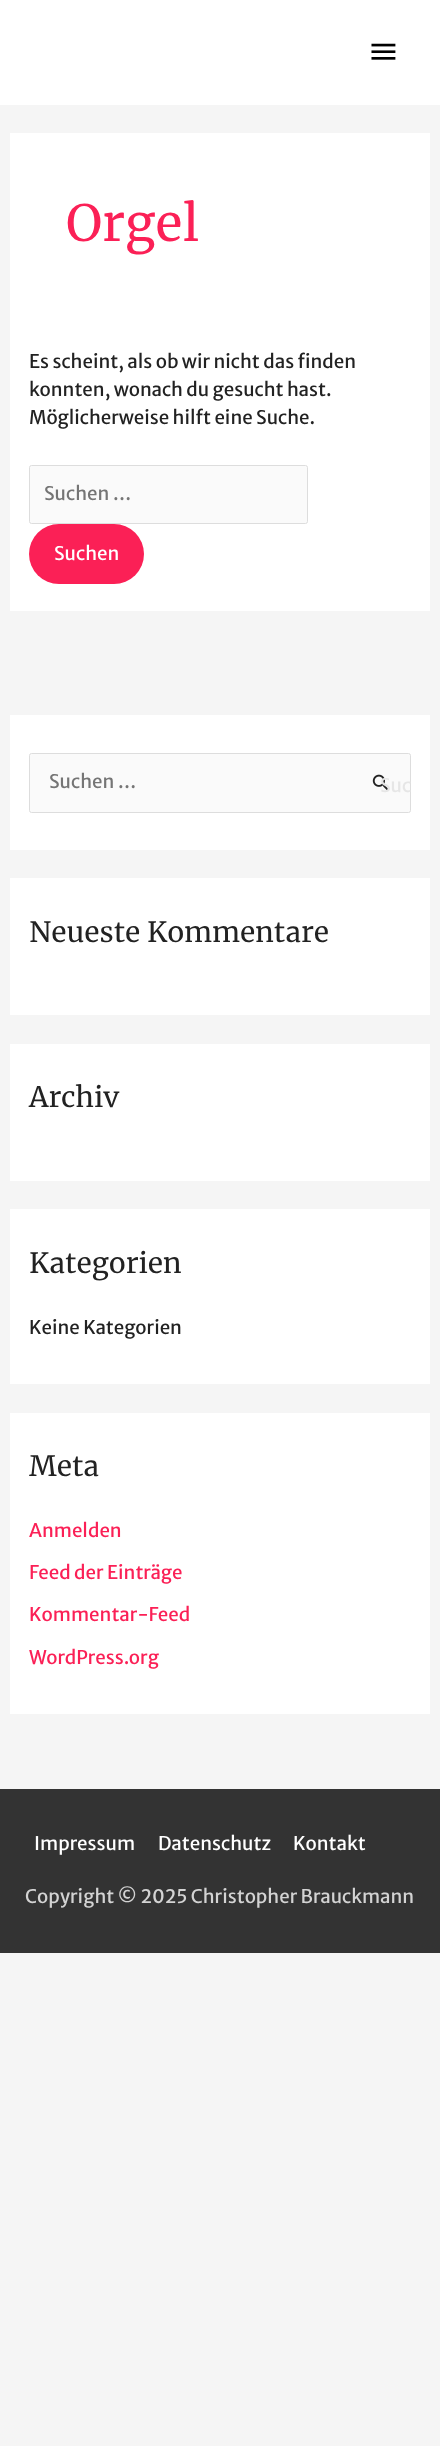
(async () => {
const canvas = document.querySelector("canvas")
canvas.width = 440
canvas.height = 2446
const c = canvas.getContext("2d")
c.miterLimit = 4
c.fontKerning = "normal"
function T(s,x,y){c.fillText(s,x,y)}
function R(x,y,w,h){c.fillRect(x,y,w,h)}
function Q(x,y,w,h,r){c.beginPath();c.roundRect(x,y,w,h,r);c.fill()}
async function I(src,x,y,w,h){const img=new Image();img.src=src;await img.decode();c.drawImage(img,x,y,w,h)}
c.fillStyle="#f5f5f5"
R(0,0,440,2446)
c.fillStyle="#fff"
R(0,0,440,105)
await I("1.png",371,43,25,17)
R(10,133,420,478)
c.font="50px Merriweather"
c.fillStyle="#fb2056"
T("Orgel",66,241)
c.font="18.75px Merriweather Sans"
c.fillStyle="#222"
T("Es scheint, als ob wir nicht das finden",29,368)
T("konnten, wonach du gesucht hast.",29,396)
T("Möglicherweise hilft eine Suche.",29,424)
c.fillStyle="#fafafa"
c.beginPath()
c.roundRect(29.5,465.5,278,58,2)
c.fill()
c.strokeStyle="#ddd"
c.stroke()
c.fillStyle="#757575"
T("Suchen …",44,500)
c.fillStyle="#fb2056"
Q(29,524,115,60,30)
c.fillStyle="#fff"
T("Suchen",54,560)
R(10,715,420,135)
c.fillStyle="#fafafa"
c.beginPath()
c.roundRect(29.5,753.5,381,59,2)
c.fill()
c.stroke()
c.fillStyle="#757575"
T("Suchen …",49,788)
await I("2.png",372,774,18,17)
c.fillStyle="#e6e6e6"
T("Suc",380,792)
c.fillStyle="#fff"
R(10,878,420,137)
c.font="28px Merriweather"
c.fillStyle="#222"
T("Neueste Kommentare",29,942)
c.fillStyle="#fff"
R(10,1044,420,137)
c.fillStyle="#222"
T("Archiv",29,1107)
c.fillStyle="#fff"
R(10,1209,420,175)
c.fillStyle="#222"
T("Kategorien",29,1273)
c.font="18.75px Merriweather Sans"
T("Keine Kategorien",29,1334)
c.fillStyle="#fff"
R(10,1413,420,301)
c.font="28px Merriweather"
c.fillStyle="#222"
T("Meta",29,1476)
c.font="18.75px Merriweather Sans"
c.fillStyle="#fb2056"
T("Anmelden",29,1537)
T("Feed der Einträge",29,1579)
T("Kommentar-Feed",29,1621)
T("WordPress.org",29,1664)
c.fillStyle="#333"
R(0,1789,440,164)
c.fillStyle="#fff"
T("Impressum",34,1850)
T("Datenschutz",158,1850)
T("Kontakt",293,1850)
c.fillStyle="#d3d3d3"
T("Copyright © 2025 Christopher Brauckmann",25,1903)
})()
